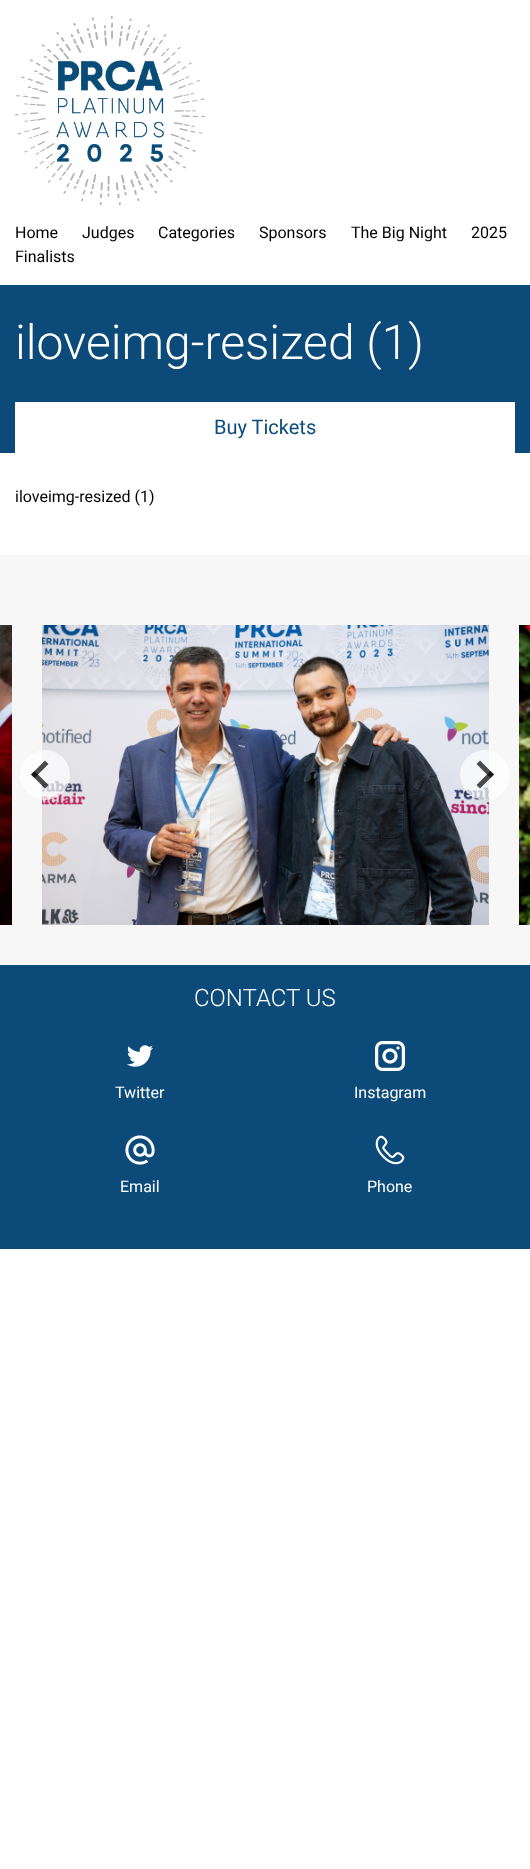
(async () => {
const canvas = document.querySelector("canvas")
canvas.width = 530
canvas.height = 1869
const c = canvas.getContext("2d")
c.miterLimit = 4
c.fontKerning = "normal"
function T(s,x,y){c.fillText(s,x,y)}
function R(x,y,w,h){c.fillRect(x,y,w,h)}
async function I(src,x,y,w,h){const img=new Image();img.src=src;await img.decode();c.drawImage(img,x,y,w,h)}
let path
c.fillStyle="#fff"
R(0,0,530,1869)
await I("1.png",15,16,190,189)
c.font="16px Roboto"
c.fillStyle="#000"
T("Home",15,238)
T("Judges",82,238)
T("Categories",158,238)
T("Sponsors",259,238)
T("The Big Night",351,238)
T("2025",471,238)
T("Finalists",15,262)
c.fillStyle="#0c4b79"
R(0,285,530,168)
c.font="300 48px Roboto"
c.fillStyle="#fff"
T("iloveimg-resized (1)",15,359)
R(15,402,500,51)
c.font="20px Roboto"
c.fillStyle="#0c4b79"
T("Buy Tickets",214,434)
c.font="16px Roboto"
c.fillStyle="#000"
T("iloveimg-resized (1)",15,502)
c.fillStyle="#f7f7f7"
R(0,555,530,410)
await I("2.png",0,625,12,300)
await I("3.png",42,625,447,300)
await I("4.png",519,625,11,300)
c.fillStyle="#ffffffb3"
c.beginPath()
c.arc(45,775,25,0,7)
c.fill()
c.fillStyle="#000000b3"
path = new Path2D("M31 774.5l14-14l3.5 3.5l-14 14z")
c.fill(path)
path = new Path2D("M31 774.5l3.5-3.5l14 14l-3.5 3.5z")
c.fill(path)
c.fillStyle="#ffffffb3"
c.beginPath()
c.arc(485,775,25,0,7)
c.fill()
c.fillStyle="#000000b3"
path = new Path2D("M476.5 764l3.5-3.5l14 14l-3.5 3.5z")
c.fill(path)
path = new Path2D("M476.5 785l14-14l3.5 3.5l-14 14z")
c.fill(path)
c.fillStyle="#0c4b79"
R(0,965,530,284)
c.font="300 24px Roboto"
c.fillStyle="#fff"
T("CONTACT US",194,1006)
await I("5.png",127,1045,26,22)
c.font="16px Roboto"
T("Twitter",115,1098)
await I("6.png",375,1041,30,30)
T("Instagram",354,1098)
await I("7.png",125,1135,30,30)
T("Email",120,1192)
await I("8.png",375,1135,30,30)
T("Phone",367,1192)
})()
